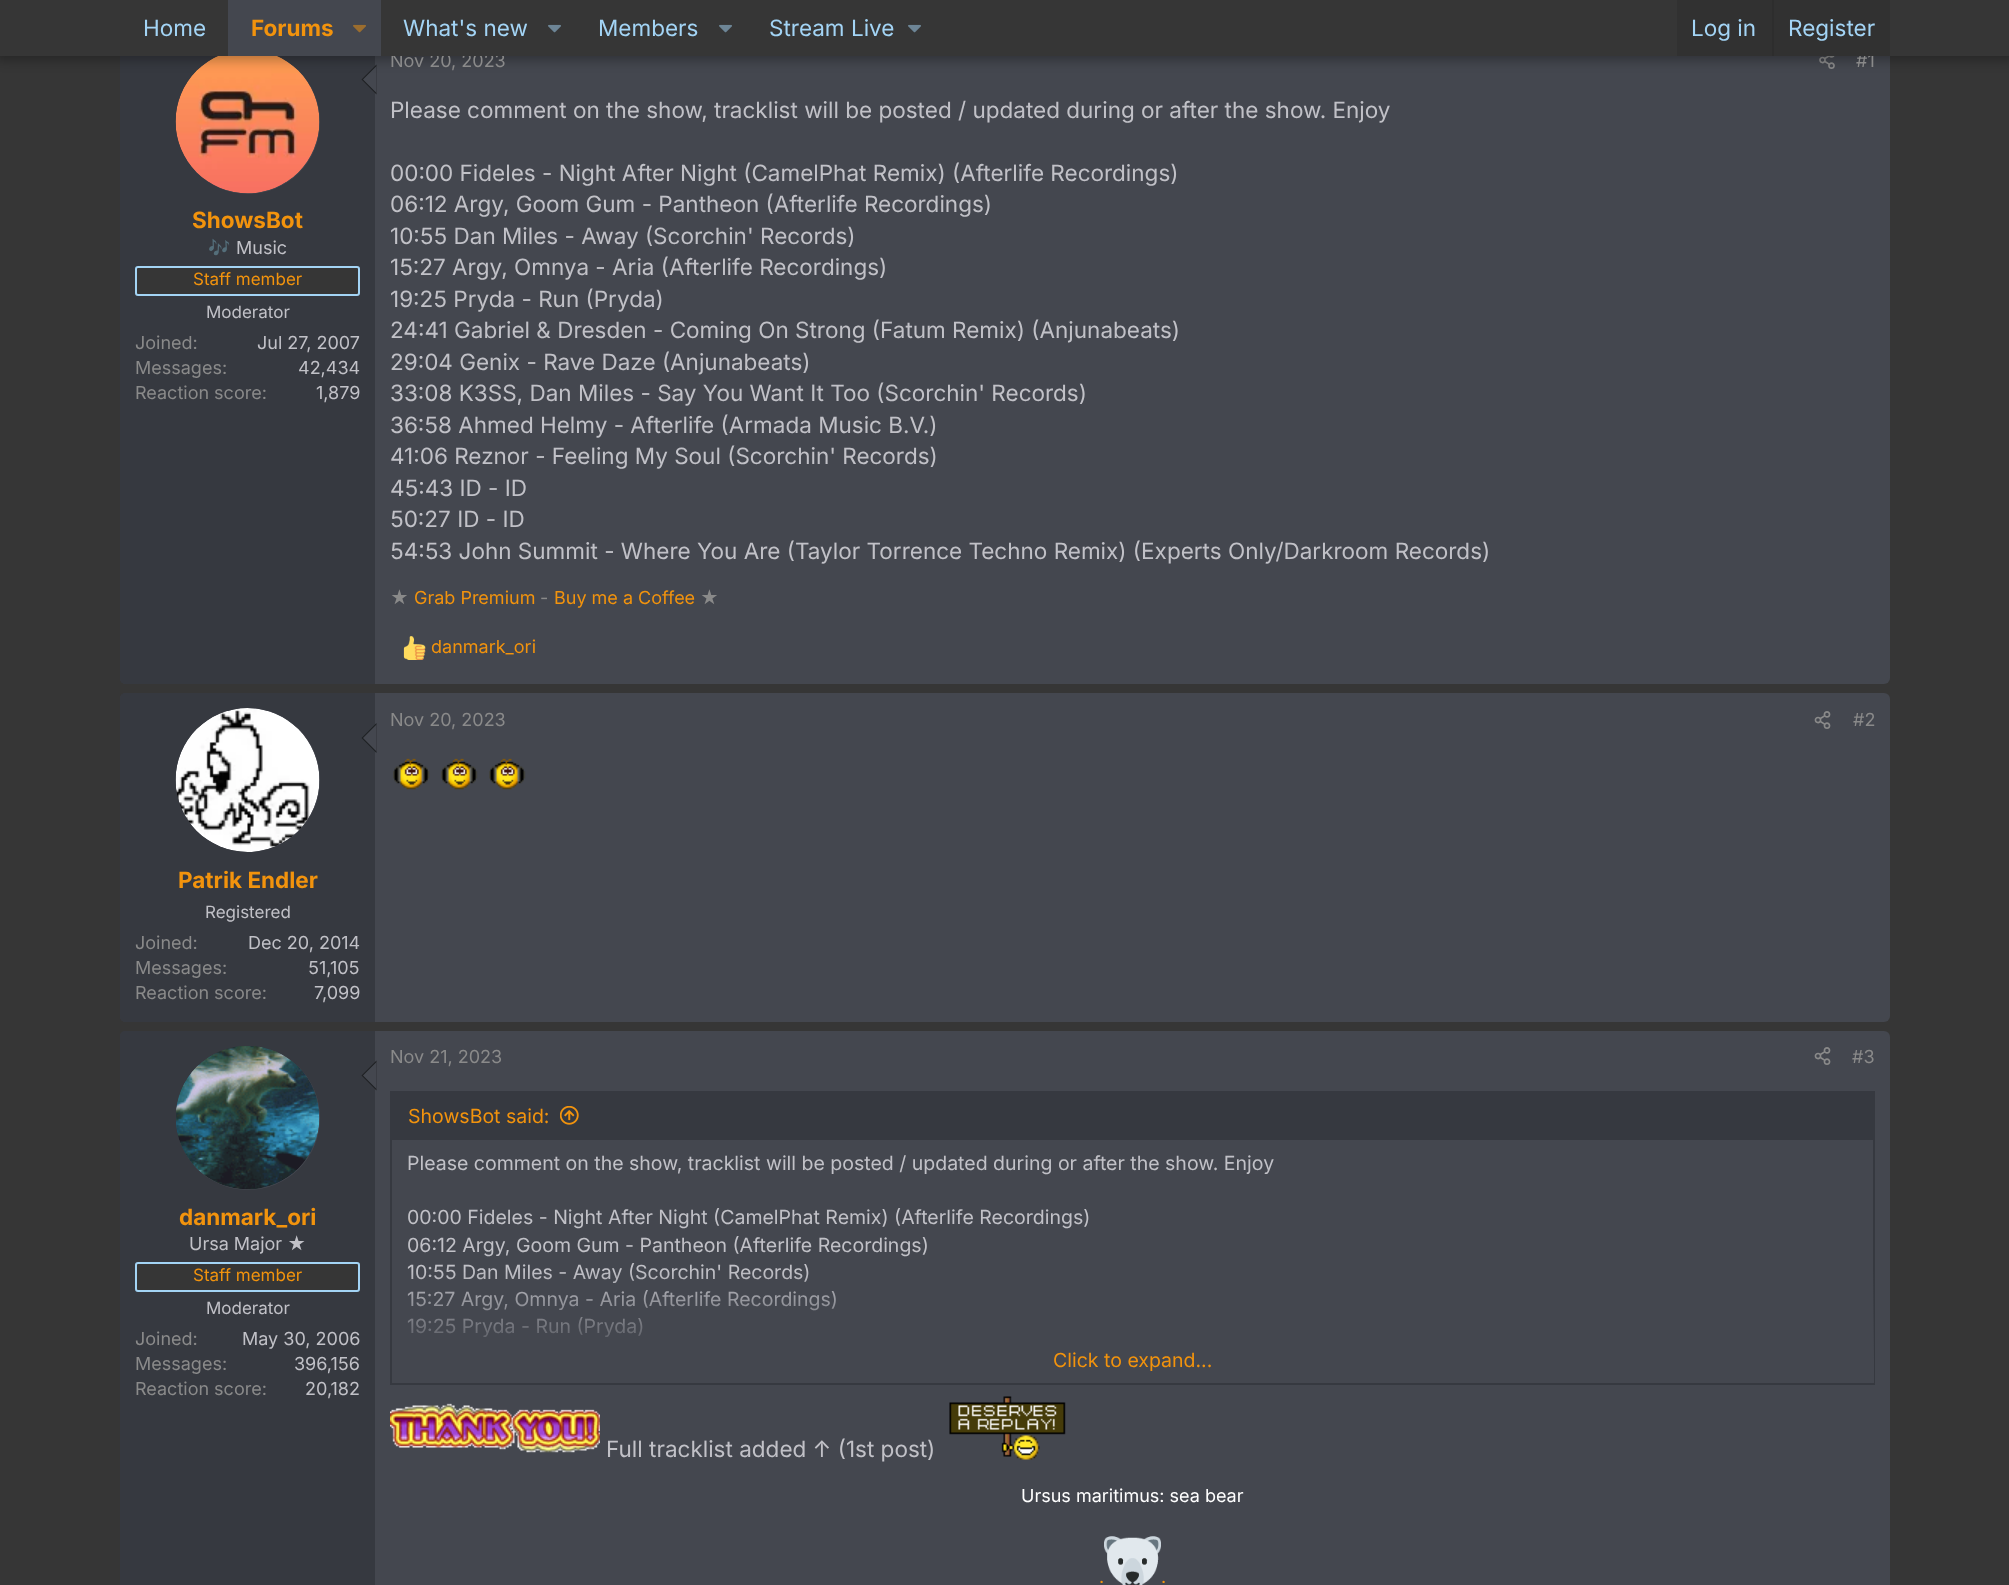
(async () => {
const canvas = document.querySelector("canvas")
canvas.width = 2009
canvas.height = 1585
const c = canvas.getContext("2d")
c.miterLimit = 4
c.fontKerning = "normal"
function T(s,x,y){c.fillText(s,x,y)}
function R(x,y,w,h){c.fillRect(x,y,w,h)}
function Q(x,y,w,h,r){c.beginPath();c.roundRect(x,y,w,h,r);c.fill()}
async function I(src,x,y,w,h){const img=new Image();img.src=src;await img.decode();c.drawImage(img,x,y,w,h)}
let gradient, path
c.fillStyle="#363636"
R(0,0,2009,1585)
c.fillStyle="#44474f"
Q(120,35,1770,649,6)
c.fillStyle="#363940"
c.beginPath()
c.roundRect(120,35,255,649,[5,0,0,5])
c.fill()
c.fillStyle="#44474f"
c.beginPath()
c.arc(248,122,72,0,7)
c.fill()
await I("3.png",175,56,145,138)
c.fillStyle="#1e2023"
path = new Path2D("M376.5 64.5v30l-15-15z")
c.fill(path)
c.fillStyle="#44474f"
path = new Path2D("M376.5 66v27l-13.5-13.5z")
c.fill(path)
await I("4.png",1819,56,16,13)
c.fillStyle="#0000004d"
c.filter="blur(6px)"
c.beginPath()
c.rect(-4,-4,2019,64)
c.fill()
c.filter="none"
c.font="18px Inter"
c.fillStyle="#8a8a8a"
T("Nov 20, 2023",390,67)
T("#1",1856,67)
c.fillStyle="#363636"
R(0,0,2009,56)
c.font="22.5px Inter"
c.fillStyle="#a3d4f5"
T("Home",143,36)
c.fillStyle="#44474f"
R(228,0,153,56)
c.font="bold 22.5px Inter"
c.fillStyle="#f2930d"
T("Forums",251,36)
await I("1.png",353,24,13,9)
c.font="22.5px Inter"
c.fillStyle="#a3d4f5"
T("What's new",403,36)
await I("2.png",548,24,13,9)
T("Members",598,36)
await I("2.png",719,24,13,9)
T("Stream Live",769,36)
await I("2.png",908,24,13,9)
c.fillStyle="#313131"
R(1677,0,213,56)
c.fillStyle="#a3d4f5"
T("Log in",1691,36)
c.fillStyle="#2d2d2d"
R(1772,0,2,56)
c.fillStyle="#a3d4f5"
T("Register",1788,36)
c.font="bold 22.5px Inter"
c.fillStyle="#f2930d"
T("ShowsBot",192,228)
c.font="18px Noto Color Emoji"
c.fillStyle="#c1c1c7"
T("🎶",208,254)
c.font="18px Inter"
T("Music",236,254)
c.fillStyle="#363636"
c.beginPath()
c.roundRect(136,267,223,28,2)
c.fill()
c.strokeStyle="#a3d4f5"
c.lineWidth=2
c.stroke()
c.font="17px Inter"
c.fillStyle="#f2930d"
T("Staff member",193,285)
c.fillStyle="#c1c1c7"
T("Moderator",206,318)
c.font="18px Inter"
c.fillStyle="#8a8a8a"
T("Joined:",135,349)
c.fillStyle="#c1c1c7"
T("Jul 27, 2007",257,349)
c.fillStyle="#8a8a8a"
T("Messages:",135,374)
c.fillStyle="#c1c1c7"
T("42,434",298,374)
c.fillStyle="#8a8a8a"
T("Reaction score:",135,399)
c.fillStyle="#c1c1c7"
T("1,879",316,399)
c.font="22.5px Inter"
T("Please comment on the show, tracklist will be posted / updated during or after the show. Enjoy",390,118)
T("00:00 Fideles - Night After Night (CamelPhat Remix) (Afterlife Recordings)",390,181)
T("06:12 Argy, Goom Gum - Pantheon (Afterlife Recordings)",390,212)
T("10:55 Dan Miles - Away (Scorchin' Records)",390,244)
T("15:27 Argy, Omnya - Aria (Afterlife Recordings)",390,275)
T("19:25 Pryda - Run (Pryda)",390,307)
T("24:41 Gabriel & Dresden - Coming On Strong (Fatum Remix) (Anjunabeats)",390,338)
T("29:04 Genix - Rave Daze (Anjunabeats)",390,370)
T("33:08 K3SS, Dan Miles - Say You Want It Too (Scorchin' Records)",390,401)
T("36:58 Ahmed Helmy - Afterlife (Armada Music B.V.)",390,433)
T("41:06 Reznor - Feeling My Soul (Scorchin' Records)",390,464)
T("45:43 ID - ID",390,496)
T("50:27 ID - ID",390,527)
T("54:53 John Summit - Where You Are (Taylor Torrence Techno Remix) (Experts Only/Darkroom Records)",390,559)
c.font="18px Inter"
c.fillStyle="#8a8a8a"
T("★",390,604)
c.fillStyle="#f2930d"
T("Grab Premium",414,604)
c.fillStyle="#8a8a8a"
T("-",540,604)
c.fillStyle="#f2930d"
T("Buy me a Coffee",554,604)
c.fillStyle="#8a8a8a"
T("★",700,604)
await I("5.png",403,636,23,24)
c.fillStyle="#f2930d"
T("danmark_ori",431,653)
c.fillStyle="#44474f"
Q(120,693,1770,329,6)
c.fillStyle="#8a8a8a"
T("Nov 20, 2023",390,726)
await I("6.png",1814,711,17,18)
T("#2",1853,726)
await I("7.png",393,758,37,32)
await I("7.png",441,758,37,32)
await I("8.png",489,758,37,32)
c.fillStyle="#363940"
c.beginPath()
c.roundRect(120,693,255,329,[5,0,0,5])
c.fill()
c.fillStyle="#44474f"
c.beginPath()
c.arc(248,780,72,0,7)
c.fill()
await I("9.png",175,708,145,144)
c.fillStyle="#1e2023"
path = new Path2D("M376.5 723v30l-15-15z")
c.fill(path)
c.fillStyle="#44474f"
path = new Path2D("M376.5 724.5v27l-13.5-13.5z")
c.fill(path)
c.font="bold 22.5px Inter"
c.fillStyle="#f2930d"
T("Patrik Endler",178,888)
c.font="17px Inter"
c.fillStyle="#c1c1c7"
T("Registered",205,918)
c.font="18px Inter"
c.fillStyle="#8a8a8a"
T("Joined:",135,949)
c.fillStyle="#c1c1c7"
T("Dec 20, 2014",248,949)
c.fillStyle="#8a8a8a"
T("Messages:",135,974)
c.fillStyle="#c1c1c7"
T("51,105",308,974)
c.fillStyle="#8a8a8a"
T("Reaction score:",135,999)
c.fillStyle="#c1c1c7"
T("7,099",314,999)
c.fillStyle="#44474f"
Q(120,1031,1770,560,6)
c.fillStyle="#363940"
path = new Path2D("M125 1031h250v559h-250c-3 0-5-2-5-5v-549c0-3 2-5 5-5z")
c.fill(path)
c.fillStyle="#44474f"
c.beginPath()
c.arc(248,1118,72,0,7)
c.fill()
await I("10.png",176,1046,144,144)
c.fillStyle="#1e2023"
path = new Path2D("M376.5 1060.5v30l-15-15z")
c.fill(path)
c.fillStyle="#44474f"
path = new Path2D("M376.5 1062v27l-13.5-13.5z")
c.fill(path)
c.font="bold 22.5px Inter"
c.fillStyle="#f2930d"
T("danmark_ori",179,1225)
c.font="18px Inter"
c.fillStyle="#c1c1c7"
T("Ursa Major ★",189,1250)
c.fillStyle="#363636"
c.beginPath()
c.roundRect(136,1263,223,28,2)
c.fill()
c.stroke()
c.font="17px Inter"
c.fillStyle="#f2930d"
T("Staff member",193,1281)
c.fillStyle="#c1c1c7"
T("Moderator",206,1314)
c.font="18px Inter"
c.fillStyle="#8a8a8a"
T("Joined:",135,1345)
c.fillStyle="#c1c1c7"
T("May 30, 2006",242,1345)
c.fillStyle="#8a8a8a"
T("Messages:",135,1370)
c.fillStyle="#c1c1c7"
T("396,156",294,1370)
c.fillStyle="#8a8a8a"
T("Reaction score:",135,1395)
c.fillStyle="#c1c1c7"
T("20,182",305,1395)
c.fillStyle="#8a8a8a"
T("Nov 21, 2023",390,1063)
await I("6.png",1814,1047,17,18)
T("#3",1852,1063)
c.strokeStyle="#363940"
c.strokeRect(391,1092,1483,292)
c.fillStyle="#363940"
R(392,1093,1481,47)
c.font="19.5px Inter"
c.fillStyle="#f2930d"
T("ShowsBot said:",408,1123)
await I("11.png",560,1106,19,19)
c.fillStyle="#c1c1c7"
T("Please comment on the show, tracklist will be posted / updated during or after the show. Enjoy",407,1170)
T("00:00 Fideles - Night After Night (CamelPhat Remix) (Afterlife Recordings)",407,1224)
T("06:12 Argy, Goom Gum - Pantheon (Afterlife Recordings)",407,1252)
T("10:55 Dan Miles - Away (Scorchin' Records)",407,1279)
T("15:27 Argy, Omnya - Aria (Afterlife Recordings)",407,1306)
T("19:25 Pryda - Run (Pryda)",407,1333)
gradient = c.createLinearGradient(1133,1270,1133,1383)
gradient.addColorStop(0,"#44474f00")
gradient.addColorStop(.8,"#44474f")
c.fillStyle = gradient
R(407,1272,1467,111)
c.fillStyle="#f2930d"
T("Click to expand...",1053,1367)
await I("12.png",390,1403,210,50)
c.font="22.5px Inter"
c.fillStyle="#c1c1c7"
T("Full tracklist added ↑ (1st post)",606,1457)
await I("13.png",949,1396,117,64)
c.font="18px Inter"
c.fillStyle="#fff"
T("Ursus maritimus: sea bear",1021,1502)
c.fillStyle="#f2930d"
T(".",1099,1583)
await I("14.png",1104,1536,57,49)
T(".",1161,1583)
})()
